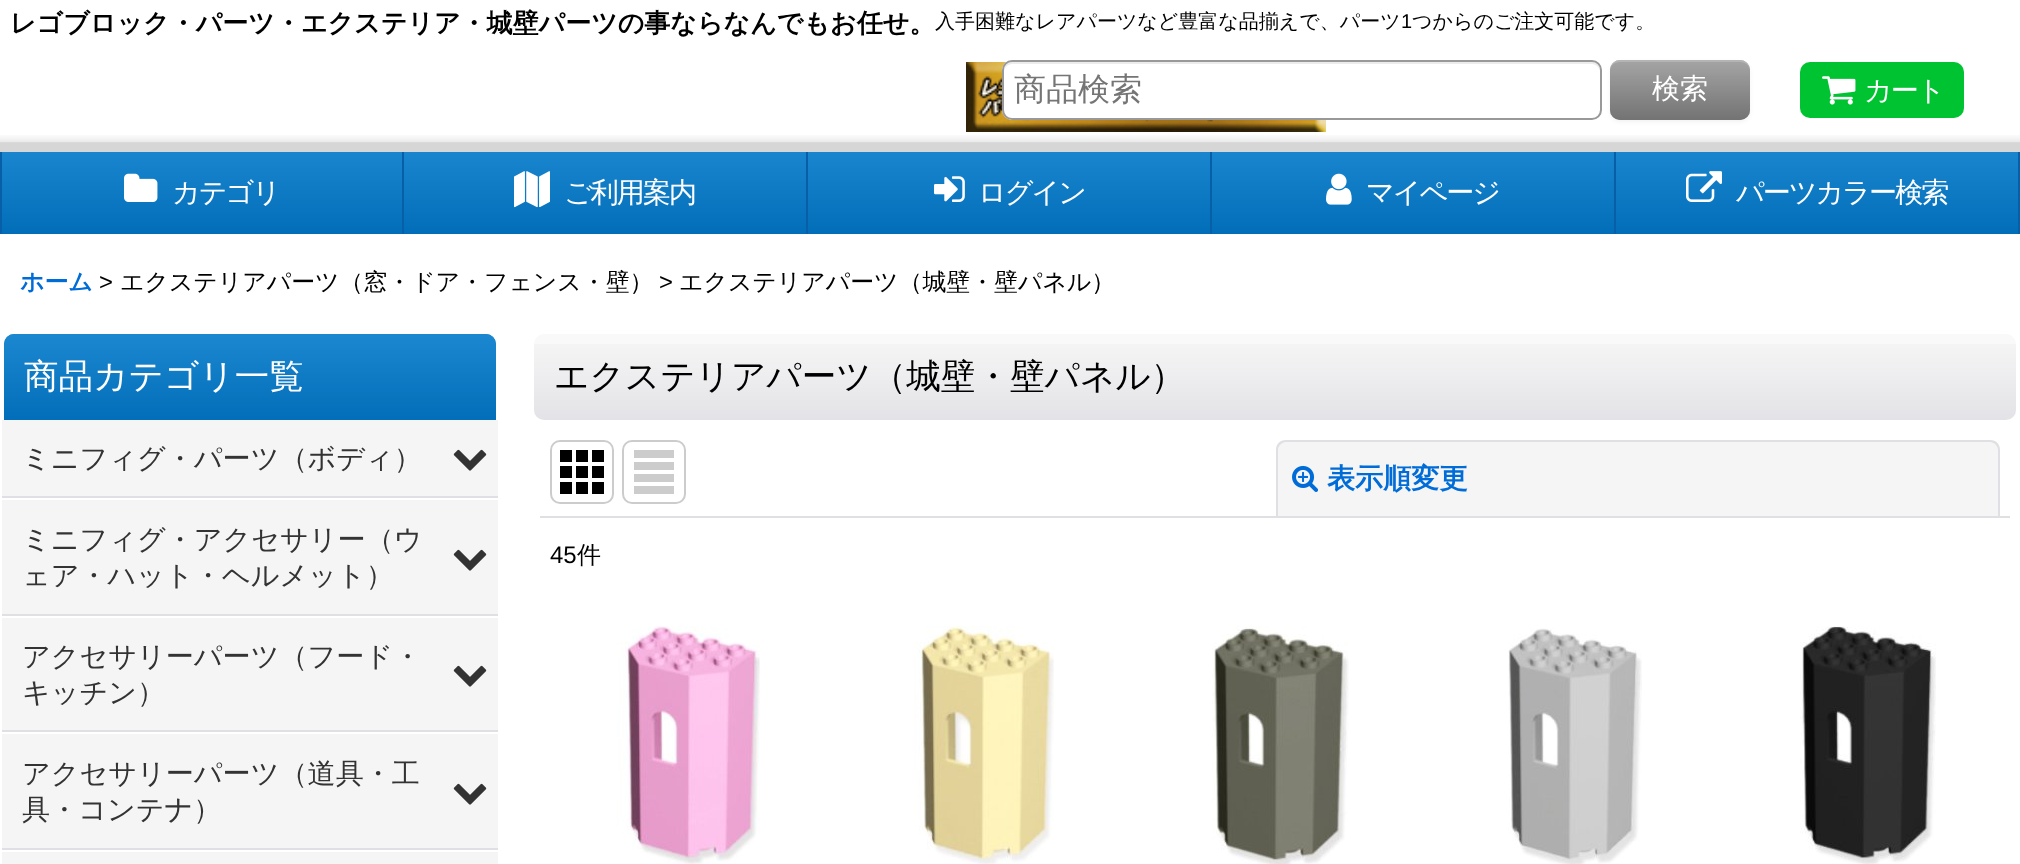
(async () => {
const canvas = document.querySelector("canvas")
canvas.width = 2020
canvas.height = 864
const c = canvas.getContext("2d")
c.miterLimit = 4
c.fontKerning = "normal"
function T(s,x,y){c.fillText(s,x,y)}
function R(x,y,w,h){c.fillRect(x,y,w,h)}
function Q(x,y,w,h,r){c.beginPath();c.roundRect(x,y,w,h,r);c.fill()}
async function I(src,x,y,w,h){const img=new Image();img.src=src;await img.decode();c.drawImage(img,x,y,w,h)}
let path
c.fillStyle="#fff"
R(0,0,2020,864)
await I("1.png",0,135,2020,17)
c.font="bold 26px WenQuanYi Zen Hei"
c.fillStyle="#000"
T("レゴブロック・パーツ・エクステリア・城壁パーツの事ならなんでもお任せ。",10,32)
c.font="500 20px WenQuanYi Zen Hei"
T("入手困難なレアパーツなど豊富な品揃えで、パーツ",935,28)
c.font="20px Liberation Sans"
T("1",1401,28)
c.font="500 20px WenQuanYi Zen Hei"
T("つからのご注文可能です。",1412,28)
await I("3.png",966,62,360,70)
c.fillStyle="#fff"
Q(1002,60,600,60,10)
c.fillStyle="#ececec"
path = new Path2D("M1012 64h580c4 0 8 4 8 8c0-5-2-10-8-10h-580c-6 0-8 5-8 10c0-4 4-8 8-8z")
c.fill(path)
c.beginPath()
c.roundRect(1003,61,598,58,9)
c.strokeStyle="#999"
c.lineWidth=2
c.stroke()
c.font="500 32px WenQuanYi Zen Hei"
c.fillStyle="#757575"
T("商品検索",1014,100)
c.fillStyle="#0000000d"
c.filter="blur(2px)"
c.beginPath()
c.roundRect(1610,62,140,60,10)
c.fill()
c.filter="none"
c.fillStyle="#a2a2a2"
Q(1610,60,140,60,10)
await I("2.png",1610,60,140,60)
c.fillStyle="#ffffff33"
path = new Path2D("M1620 62h120c6 0 10 4 10 10c0-17-18-12-30-12h-80c-12 0-30-5-30 12c0-6 4-10 10-10z")
c.fill(path)
c.font="500 28px WenQuanYi Zen Hei"
c.fillStyle="#fff"
T("検索",1652,98)
c.fillStyle="#00c331"
Q(1800,62,164,56,10)
await I("4.png",1822,76,34,29)
c.letterSpacing="-2px"
c.font="500 28.1px WenQuanYi Zen Hei"
c.fillStyle="#fff"
T("カート",1864,100)
await I("5.png",2,152,400,82)
c.fillStyle="#065fa7"
R(402,152,2,82)
R(0,152,2,82)
await I("6.png",124,173,34,29)
c.fillStyle="#fff"
T("カテゴリ",172,202)
await I("7.png",404,152,402,82)
c.fillStyle="#065fa7"
R(806,152,2,82)
await I("8.png",514,171,36,37)
c.fillStyle="#fff"
T("ご利用案内",564,202)
await I("7.png",808,152,402,82)
c.fillStyle="#065fa7"
R(1210,152,2,82)
await I("9.png",934,176,31,26)
c.fillStyle="#fff"
T("ログイン",978,202)
await I("7.png",1212,152,402,82)
c.fillStyle="#065fa7"
R(1614,152,2,82)
await I("10.png",1326,173,26,32)
c.fillStyle="#fff"
T("マイページ",1366,202)
await I("7.png",1616,152,402,82)
c.fillStyle="#065fa7"
R(2018,152,2,82)
await I("11.png",1686,171,36,31)
c.fillStyle="#fff"
T("パーツカラー検索",1736,202)
c.letterSpacing="0px"
c.font="bold 23.9px WenQuanYi Zen Hei"
c.fillStyle="#006cd8"
T("ホーム",20,290)
c.font="23.9px Liberation Sans"
c.fillStyle="#000"
T(">",99,290)
c.font="500 23.9px WenQuanYi Zen Hei"
T("エクステリアパーツ（窓・ドア・フェンス・壁）",120,290)
c.font="23.9px Liberation Sans"
T(">",659,290)
c.font="500 23.9px WenQuanYi Zen Hei"
T("エクステリアパーツ（城壁・壁パネル）",679,290)
c.fillStyle="#1e8ad3"
c.beginPath()
c.roundRect(4,334,492,86,[10,10,0,0])
c.fill()
await I("12.png",4,334,492,86)
c.font="500 34.6px WenQuanYi Zen Hei"
c.fillStyle="#fff"
T("商品カテゴリ一覧",24,388)
c.fillStyle="#f5f5f5"
R(2,420,496,76)
c.fillStyle="#e0dfe3"
R(2,496,496,2)
c.font="500 28.1px WenQuanYi Zen Hei"
c.fillStyle="#333"
T("ミニフィグ・パーツ（ボディ）",22,468)
await I("13.png",453,449,34,22)
c.fillStyle="#f5f5f5"
R(2,500,496,114)
c.fillStyle="#e0dfe3"
R(2,614,496,2)
c.fillStyle="#333"
T("ミニフィグ・アクセサリー（ウ",22,549)
await I("13.png",453,549,34,22)
T("ェア・ハット・ヘルメット）",22,585)
c.fillStyle="#f5f5f5"
R(2,618,496,112)
c.fillStyle="#e0dfe3"
R(2,730,496,2)
c.fillStyle="#333"
T("アクセサリーパーツ（フード・",22,666)
await I("13.png",453,665,34,22)
T("キッチン）",22,702)
c.fillStyle="#f5f5f5"
R(2,734,496,114)
c.fillStyle="#e0dfe3"
R(2,848,496,2)
c.fillStyle="#333"
T("アクセサリーパーツ（道具・工",22,783)
T("具・コンテナ）",22,819)
await I("13.png",453,783,34,22)
c.fillStyle="#f5f5f5"
R(2,852,496,12)
c.fillStyle="#f9f9f9"
Q(534,334,1482,86,10)
await I("14.png",534,344,1482,76)
c.font="500 34.6px WenQuanYi Zen Hei"
c.fillStyle="#000"
T("エクステリアパーツ（城壁・壁パネル）",554,388)
c.fillStyle="#e0dfe3"
R(540,516,1470,2)
c.beginPath()
c.roundRect(551,441,62,62,9)
c.strokeStyle="#ccc"
c.stroke()
await I("15.png",560,450,44,44)
c.beginPath()
c.roundRect(623,441,62,62,9)
c.stroke()
await I("16.png",634,450,40,44)
c.fillStyle="#f5f5f5"
c.beginPath()
c.roundRect(1276,440,724,76,[10,10,0,0])
c.fill()
c.fillStyle="#e0dfe3"
path = new Path2D("M1286 440h704c6 0 10 4 10 10v66h-724v-66c0-6 4-10 10-10zm0 2h704c4 0 8 4 8 8v66h-720v-66c0-4 4-8 8-8z")
c.fill(path,"evenodd")
await I("17.png",1292,465,26,27)
c.font="bold 28.1px WenQuanYi Zen Hei"
c.fillStyle="#006cd8"
T("表示順変更",1327,488)
c.font="24px Liberation Sans"
c.fillStyle="#000"
T("45",550,563)
c.font="500 24px WenQuanYi Zen Hei"
T("件",577,563)
await I("18.png",617,626,143,238)
await I("19.png",914,626,140,238)
await I("20.png",1212,626,137,238)
await I("21.png",1508,628,134,236)
await I("22.png",1800,626,136,238)
})()
